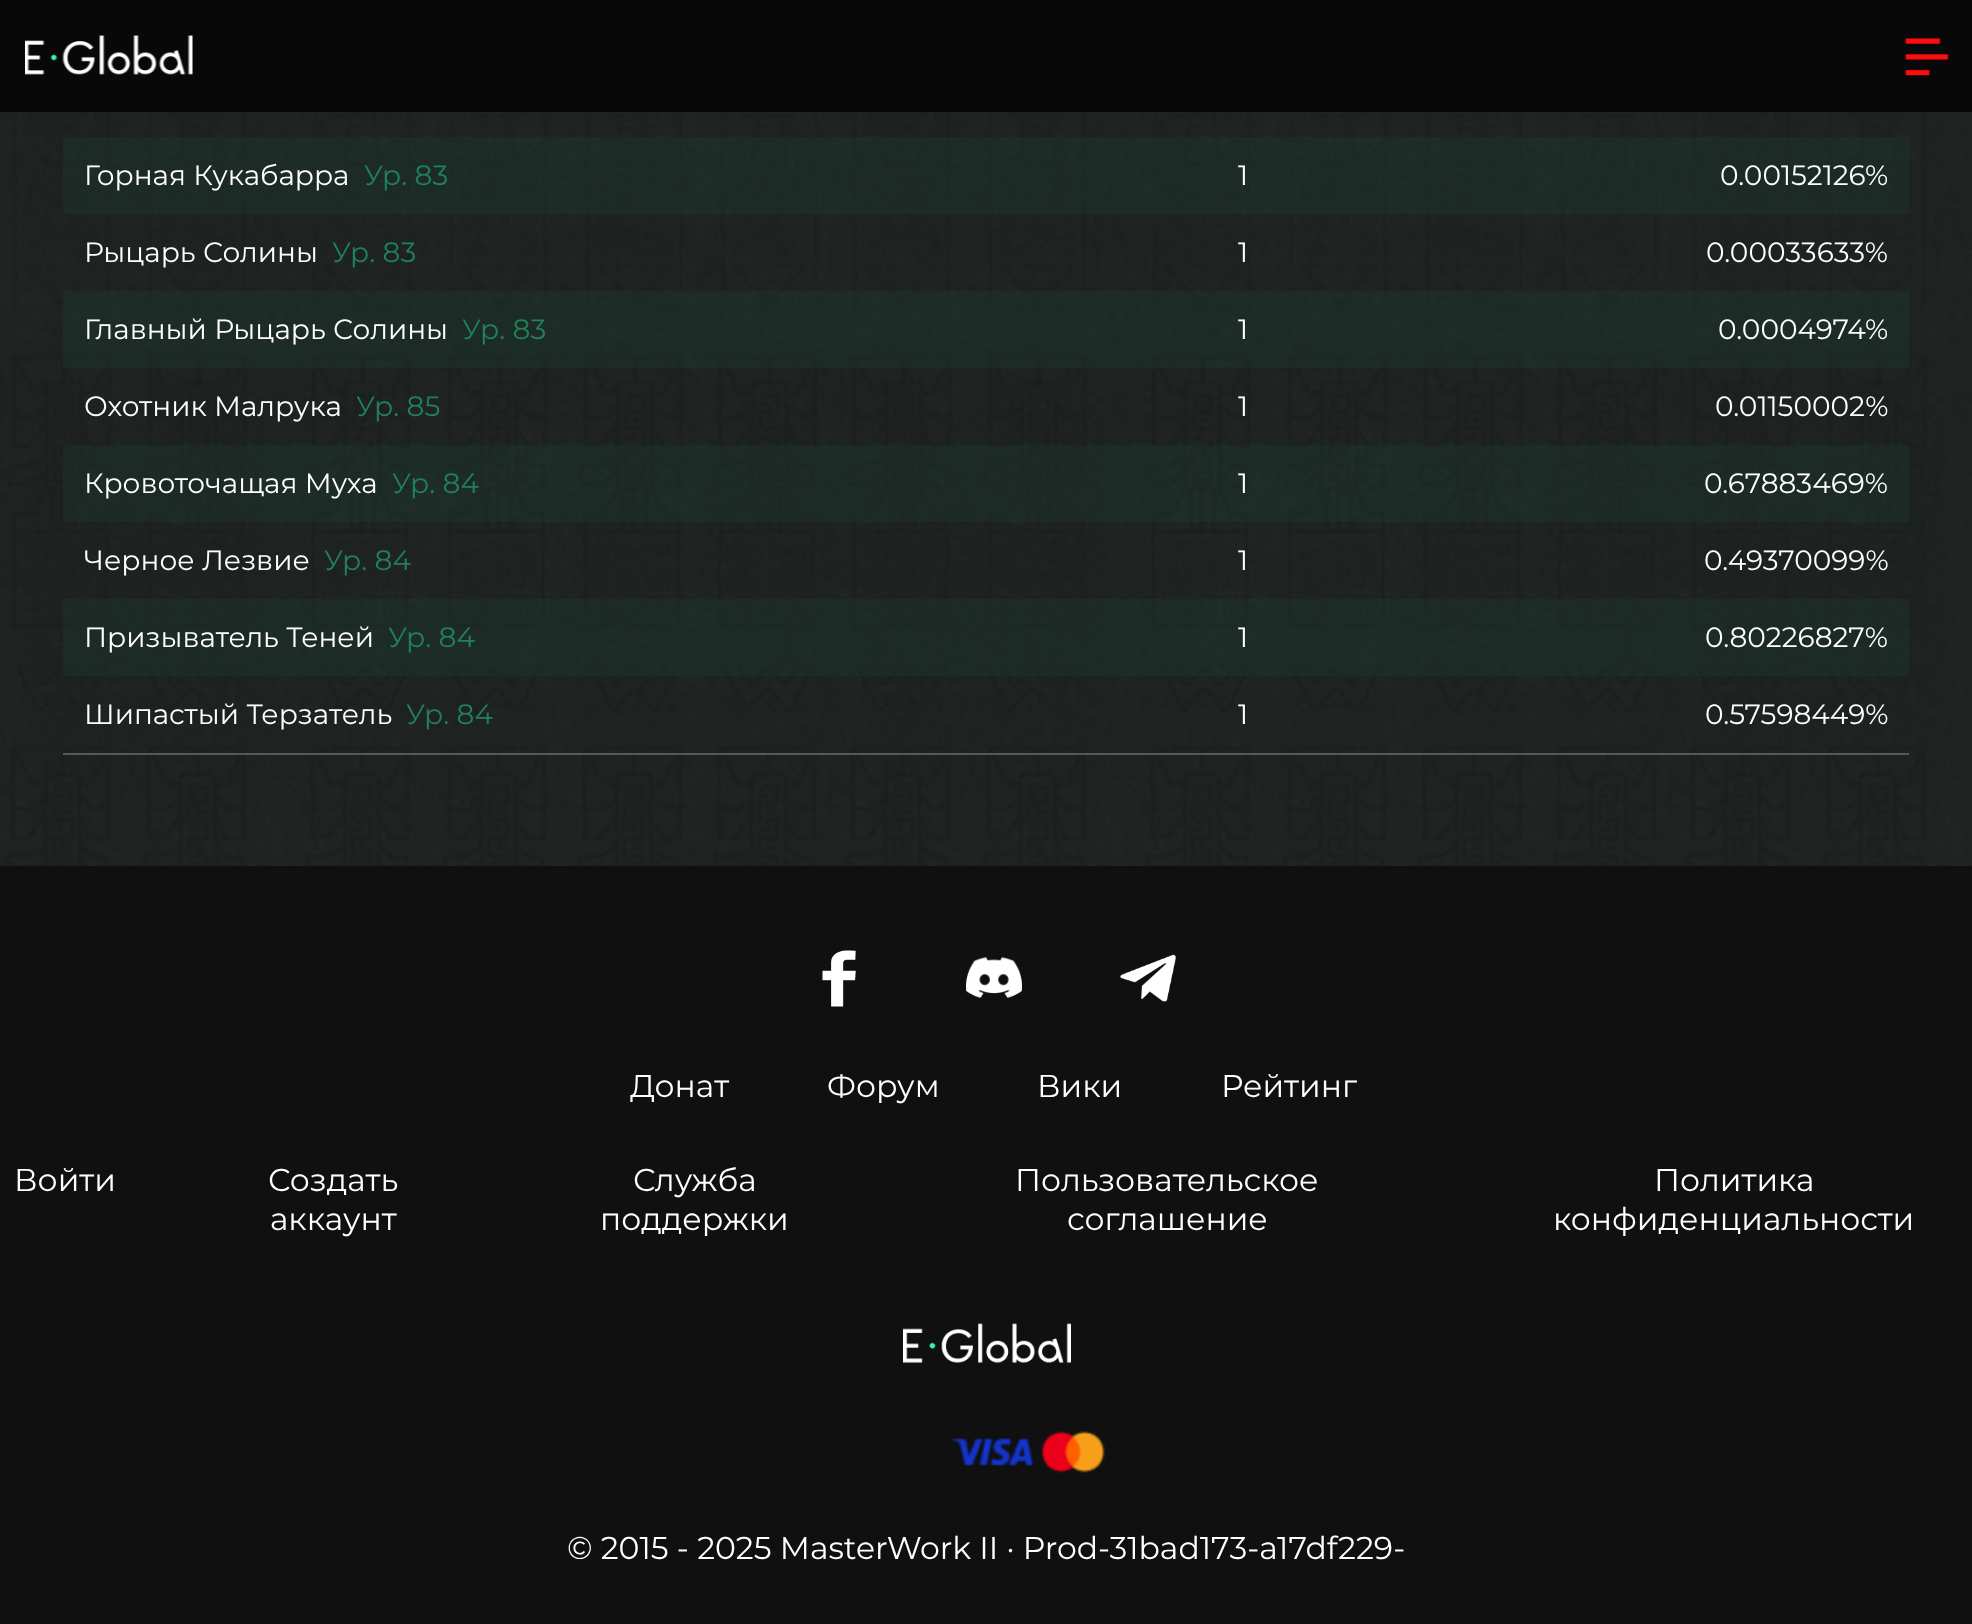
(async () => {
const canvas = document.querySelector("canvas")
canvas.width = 1972
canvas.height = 1624
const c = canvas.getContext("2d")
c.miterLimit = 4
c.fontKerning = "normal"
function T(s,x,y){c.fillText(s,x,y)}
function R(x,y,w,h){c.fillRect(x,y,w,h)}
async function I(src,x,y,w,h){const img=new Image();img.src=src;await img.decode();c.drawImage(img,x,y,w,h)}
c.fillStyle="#fff"
R(0,0,1972,1624)
await I("1.png",0,112,1972,754)
c.fillStyle="#080808"
R(0,0,1972,112)
await I("2.png",25,35,168,40)
await I("3.png",1905,38,44,38)
c.fillStyle="#585858"
R(63,753,1846,2)
c.fillStyle="#20815b1a"
R(63,137,1846,77)
c.font="28px Montserrat"
c.fillStyle="#fff"
T("Горная Кукабарра",84,185)
c.fillStyle="#20815b"
T("Ур. 83",364,185)
c.fillStyle="#fff"
T("1",1238,185)
T("0.00152126%",1720,185)
T("Рыцарь Солины",84,262)
c.fillStyle="#20815b"
T("Ур. 83",332,262)
c.fillStyle="#fff"
T("1",1238,262)
T("0.00033633%",1706,262)
c.fillStyle="#20815b1a"
R(63,291,1846,77)
c.fillStyle="#fff"
T("Главный Рыцарь Солины",84,339)
c.fillStyle="#20815b"
T("Ур. 83",462,339)
c.fillStyle="#fff"
T("1",1238,339)
T("0.0004974%",1718,339)
T("Охотник Малрука",84,416)
c.fillStyle="#20815b"
T("Ур. 85",356,416)
c.fillStyle="#fff"
T("1",1238,416)
T("0.01150002%",1715,416)
c.fillStyle="#20815b1a"
R(63,445,1846,77)
c.fillStyle="#fff"
T("Кровоточащая Муха",84,493)
c.fillStyle="#20815b"
T("Ур. 84",392,493)
c.fillStyle="#fff"
T("1",1238,493)
T("0.67883469%",1704,493)
T("Черное Лезвие",84,570)
c.fillStyle="#20815b"
T("Ур. 84",324,570)
c.fillStyle="#fff"
T("1",1238,570)
T("0.49370099%",1704,570)
c.fillStyle="#20815b1a"
R(63,599,1846,77)
c.fillStyle="#fff"
T("Призыватель Теней",84,647)
c.fillStyle="#20815b"
T("Ур. 84",388,647)
c.fillStyle="#fff"
T("1",1238,647)
T("0.80226827%",1705,647)
T("Шипастый Терзатель",84,724)
c.fillStyle="#20815b"
T("Ур. 84",406,724)
c.fillStyle="#fff"
T("1",1238,724)
T("0.57598449%",1705,724)
c.fillStyle="#101010"
R(0,866,1972,758)
await I("4.png",822,950,34,57)
await I("5.png",966,957,56,41)
await I("6.png",1120,954,56,48)
c.font="31.5px Montserrat"
c.fillStyle="#fff"
T("Донат",630,1097)
T("Форум",827,1097)
T("Вики",1037,1097)
T("Рейтинг",1221,1097)
T("Войти",14,1191)
T("Создать",268,1191)
T("аккаунт",270,1230)
T("Служба",633,1191)
T("поддержки",600,1230)
T("Пользовательское",1015,1191)
T("соглашение",1067,1230)
T("Политика",1654,1191)
T("конфиденциальности",1553,1230)
await I("7.png",903,1323,168,40)
await I("8.png",952,1431,153,42)
T("© 2015 - 2025 MasterWork II · Prod-31bad173-a17df229-",567,1559)
})()
